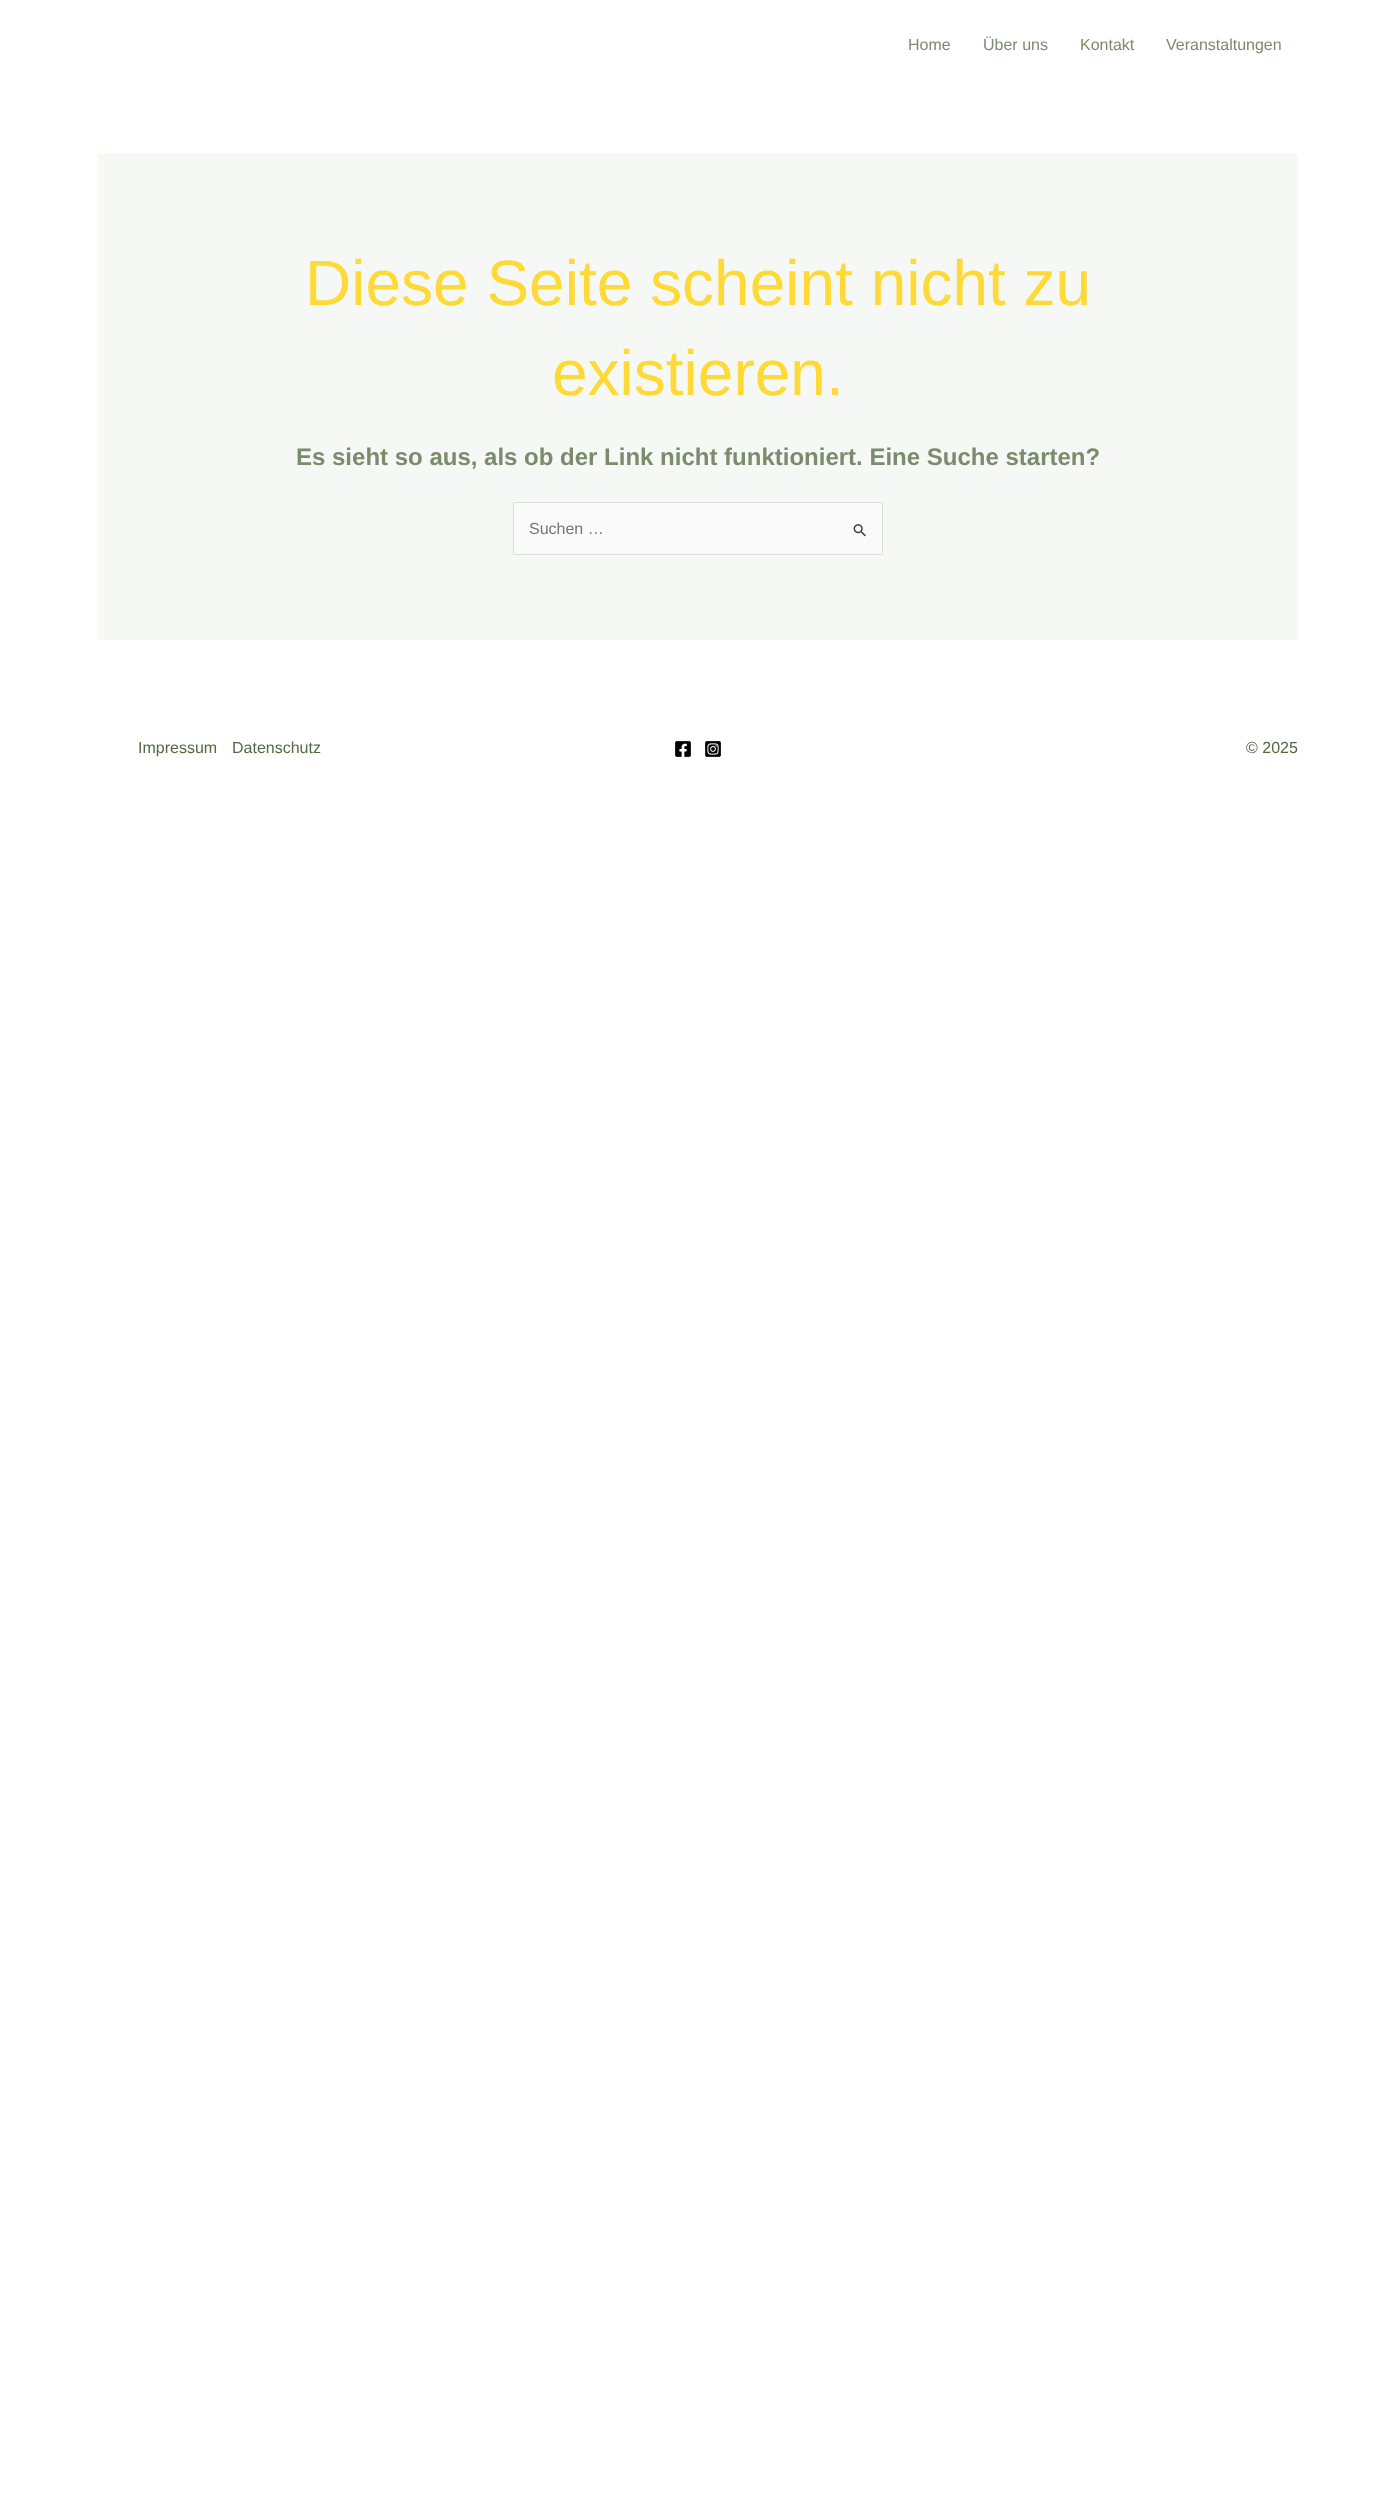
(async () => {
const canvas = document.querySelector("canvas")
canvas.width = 1396
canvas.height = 2511
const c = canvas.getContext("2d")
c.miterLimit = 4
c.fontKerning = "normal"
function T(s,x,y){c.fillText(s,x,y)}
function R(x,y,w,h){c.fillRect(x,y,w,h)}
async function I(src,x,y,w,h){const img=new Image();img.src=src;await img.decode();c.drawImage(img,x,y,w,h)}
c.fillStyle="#fff"
R(0,0,1396,2511)
c.font="16px Liberation Sans"
c.fillStyle="#7b8c6d"
T("Home",908,50)
T("Über uns",983,50)
T("Kontakt",1080,50)
T("Veranstaltungen",1166,50)
c.fillStyle="#f6f8f5"
R(98,154,1200,486)
c.font="64px Liberation Sans"
c.fillStyle="#ffd936"
T("Diese Seite scheint nicht zu",305,305)
T("existieren.",552,395)
c.font="bold 24px Liberation Sans"
c.fillStyle="#7b8c6d"
T("Es sieht so aus, als ob der Link nicht funktioniert. Eine Suche starten?",296,465)
c.fillStyle="#fafafa"
c.beginPath()
c.roundRect(513.5,502.5,369,52,1.5)
c.fill()
c.strokeStyle="#ddd"
c.stroke()
c.font="16px Liberation Sans"
c.fillStyle="#757575"
T("Suchen …",529,534)
await I("1.png",853,524,13,13)
c.fillStyle="#536942"
T("Impressum",138,753)
T("Datenschutz",232,753)
await I("2.png",675,741,16,16)
await I("3.png",705,741,16,16)
T("© 2025",1246,753)
})()
